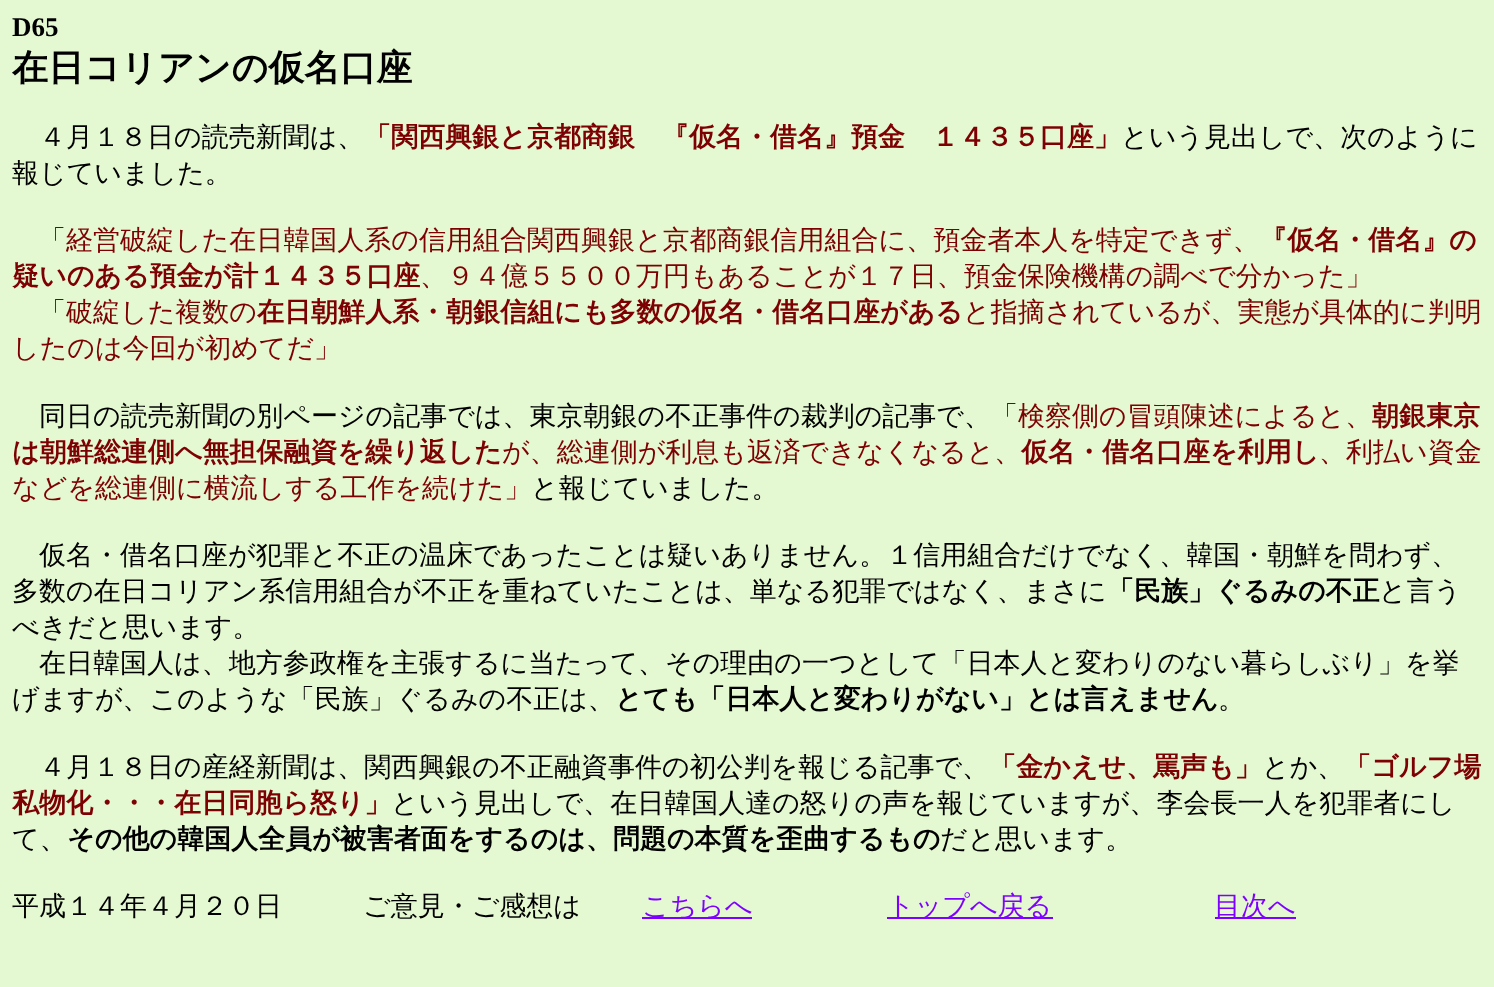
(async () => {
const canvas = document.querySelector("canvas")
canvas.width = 1494
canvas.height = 987
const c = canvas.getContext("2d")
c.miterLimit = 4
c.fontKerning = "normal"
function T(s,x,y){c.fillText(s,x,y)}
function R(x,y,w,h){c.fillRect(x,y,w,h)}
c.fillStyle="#e4f8d1"
R(0,0,1494,987)
c.font="bold 27px Liberation Serif"
c.fillStyle="#000"
T("D65",12,36)
c.font="bold 36px WenQuanYi Zen Hei"
T("在日コリアンの仮名口座",12,80)
c.font="500 27px WenQuanYi Zen Hei"
T("４月１８日の読売新聞は、",39,146)
c.font="bold 27px WenQuanYi Zen Hei"
c.fillStyle="#7d0003"
T("「関西興銀と京都商銀　『仮名・借名』預金　１４３５口座」",364,146)
c.font="500 27px WenQuanYi Zen Hei"
c.fillStyle="#000"
T("という見出しで、次のように",1121,146)
T("報じていました。",12,182)
c.fillStyle="#7d0003"
T("「経営破綻した在日韓国人系の信用組合関西興銀と京都商銀信用組合に、預金者本人を特定できず、",39,249)
c.font="bold 27px WenQuanYi Zen Hei"
T("『仮名・借名』の",1260,249)
T("疑いのある預金が計１４３５口座",12,285)
c.font="500 27px WenQuanYi Zen Hei"
T("、９４億５５００万円もあることが１７日、預金保険機構の調べで分かった」",420,285)
T("「破綻した複数の",39,321)
c.font="bold 27px WenQuanYi Zen Hei"
T("在日朝鮮人系・朝銀信組にも多数の仮名・借名口座がある",257,321)
c.font="500 27px WenQuanYi Zen Hei"
T("と指摘されているが、実態が具体的に判明",963,321)
T("したのは今回が初めてだ」",12,357)
c.fillStyle="#000"
T("同日の読売新聞の別ページの記事では、東京朝銀の不正事件の裁判の記事で、",39,425)
c.fillStyle="#7d0003"
T("「検察側の冒頭陳述によると、",991,425)
c.font="bold 27px WenQuanYi Zen Hei"
T("朝銀東京",1372,425)
T("は朝鮮総連側へ無担保融資を繰り返した",12,461)
c.font="500 27px WenQuanYi Zen Hei"
T("が、総連側が利息も返済できなくなると、",502,461)
c.font="bold 27px WenQuanYi Zen Hei"
T("仮名・借名口座を利用し",1021,461)
c.font="500 27px WenQuanYi Zen Hei"
T("、利払い資金",1319,461)
T("などを総連側に横流しする工作を続けた」",12,497)
c.fillStyle="#000"
T("と報じていました。",531,497)
T("仮名・借名口座が犯罪と不正の温床であったことは疑いありません。１信用組合だけでなく、韓国・朝鮮を問わず、",39,564)
T("多数の在日コリアン系信用組合が不正を重ねていたことは、単なる犯罪ではなく、まさに",12,600)
c.font="bold 27px WenQuanYi Zen Hei"
T("「民族」ぐるみの不正",1107,600)
c.font="500 27px WenQuanYi Zen Hei"
T("と言う",1379,600)
T("べきだと思います。",12,636)
T("在日韓国人は、地方参政権を主張するに当たって、その理由の一つとして「日本人と変わりのない暮らしぶり」を挙",39,672)
T("げますが、このような「民族」ぐるみの不正は、",12,708)
c.font="bold 27px WenQuanYi Zen Hei"
T("とても「日本人と変わりがない」とは言えません",615,708)
c.font="500 27px WenQuanYi Zen Hei"
T("。",1218,708)
T("４月１８日の産経新聞は、関西興銀の不正融資事件の初公判を報じる記事で、",39,776)
c.font="bold 27px WenQuanYi Zen Hei"
c.fillStyle="#7d0003"
T("「金かえせ、罵声も」",989,776)
c.font="500 27px WenQuanYi Zen Hei"
c.fillStyle="#000"
T("とか、",1262,776)
c.font="bold 27px WenQuanYi Zen Hei"
c.fillStyle="#7d0003"
T("「ゴルフ場",1344,776)
T("私物化・・・在日同胞ら怒り」",12,812)
c.font="500 27px WenQuanYi Zen Hei"
c.fillStyle="#000"
T("という見出しで、在日韓国人達の怒りの声を報じていますが、李会長一人を犯罪者にし",391,812)
T("て、",12,848)
c.font="bold 27px WenQuanYi Zen Hei"
T("その他の韓国人全員が被害者面をするのは、問題の本質を歪曲するもの",67,848)
c.font="500 27px WenQuanYi Zen Hei"
T("だと思います。",940,848)
T("平成１４年４月２０日　　　ご意見・ご感想は",12,915)
c.fillStyle="#8000ff"
R(642,917,110,2)
T("こちらへ",642,915)
R(887,917,166,2)
T("トップへ戻る",887,915)
R(1215,917,81,2)
T("目次へ",1214,915)
})()
